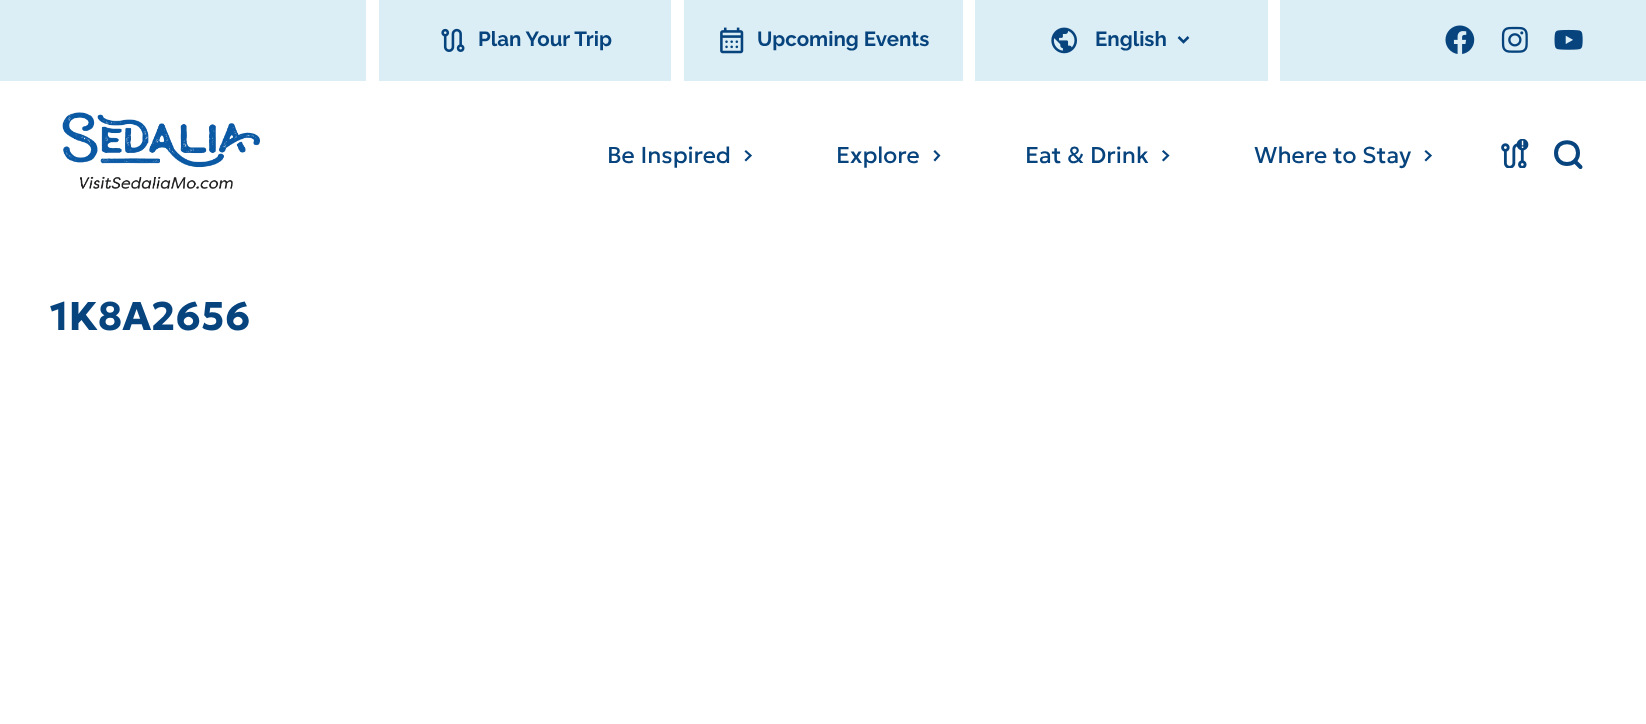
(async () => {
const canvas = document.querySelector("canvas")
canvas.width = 1646
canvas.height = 724
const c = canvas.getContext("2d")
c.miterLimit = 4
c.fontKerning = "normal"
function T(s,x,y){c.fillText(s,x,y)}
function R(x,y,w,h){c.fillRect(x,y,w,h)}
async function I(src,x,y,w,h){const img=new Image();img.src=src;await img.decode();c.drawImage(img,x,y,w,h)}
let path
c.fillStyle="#fff"
R(0,0,1646,724)
c.fillStyle="#dceef5"
R(0,0,1646,81)
c.fillStyle="#fff"
R(366,0,13,81)
await I("1.png",441,28,24,24)
c.font="bold 20.5px Raleway"
c.fillStyle="#07447e"
T("Plan Your Trip",478,46)
c.fillStyle="#fff"
R(963,0,12,81)
R(671,0,13,81)
await I("2.png",720,27,24,27)
c.fillStyle="#07447e"
T("Upcoming Events",757,46)
c.fillStyle="#fff"
R(1268,0,12,81)
await I("3.png",1051,27,26,27)
path = new Path2D("M1178.5 37l5 5l5-5")
c.strokeStyle="#07447e"
c.lineWidth=2.5
c.stroke(path)
c.fillStyle="#07447e"
T("English",1095,46)
await I("4.png",1445,25,30,29)
await I("5.png",1501,26,27,27)
await I("6.png",1554,29,29,21)
await I("7.png",62,112,198,77)
await I("8.png",1501,139,28,29)
c.font="bold 10px Raleway"
c.fillStyle="#fff"
T("!",1521,148)
path = new Path2D("M1580.5 167l-6-6m3.5-8c0 14.5-22 14.5-22 0c0-14.5 22-14.5 22 0z")
c.strokeStyle="#08447e"
c.lineWidth=4
c.lineCap="round"
c.stroke(path)
c.font="23px Geologica"
c.fillStyle="#07447e"
T("Be Inspired",607,163)
path = new Path2D("M746 160l4.5-4.5l-4.5-4")
c.lineWidth=2.2
c.lineCap="square"
c.stroke(path)
T("Explore",836,163)
path = new Path2D("M935 160l4-4.5l-4-4")
c.stroke(path)
T("Eat & Drink",1025,163)
path = new Path2D("M1163.5 160l4.5-4.5l-4.5-4")
c.stroke(path)
T("Where to Stay",1254,163)
path = new Path2D("M1426 160l4.5-4.5l-4.5-4")
c.stroke(path)
c.font="bold 40px Geologica"
T("1K8A2656",50,330)
})()
